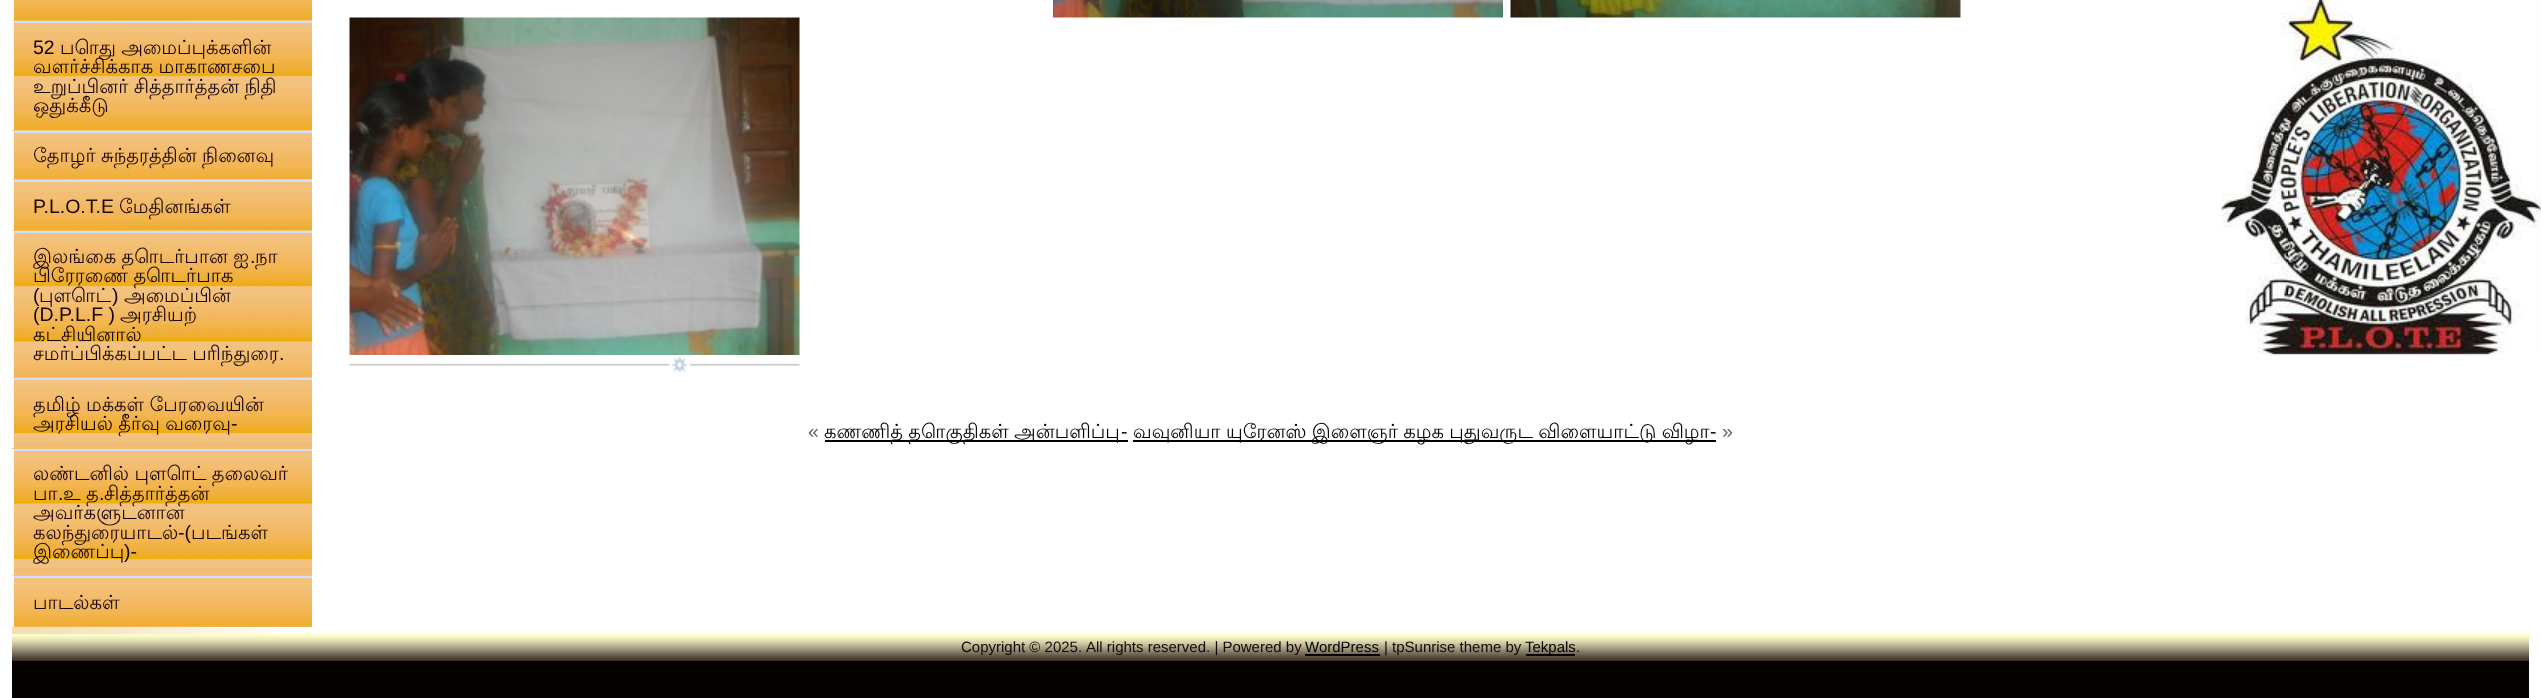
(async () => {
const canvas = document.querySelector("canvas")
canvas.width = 2541
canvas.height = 698
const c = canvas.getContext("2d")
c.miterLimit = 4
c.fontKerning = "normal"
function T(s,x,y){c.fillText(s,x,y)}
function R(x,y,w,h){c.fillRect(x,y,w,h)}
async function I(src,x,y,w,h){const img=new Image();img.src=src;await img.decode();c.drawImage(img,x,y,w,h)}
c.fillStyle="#fff"
R(0,0,2541,698)
await I("1.png",2221,0,320,355)
await I("2.png",12,20,275,614)
await I("3.png",14,0,298,21)
R(12,20,2,1)
await I("4.png",12,20,300,110)
c.fillStyle="#cfdeff"
R(12,21,300,2)
c.fillStyle="#fff"
R(12,21,2,110)
c.font="19.5px Liberation Sans"
c.fillStyle="#180509"
T("52",33,54)
c.wordSpacing="-0.5px"
c.font="19.5px Lohit Tamil"
T("பொது அமைப்புக்களின்",60,54)
T("வளர்ச்சிக்காக மாகாணசபை",33,73)
T("உறுப்பினர் சித்தார்த்தன் நிதி",33,93)
c.wordSpacing="0px"
T("ஒதுக்கீடு",33,112)
await I("5.png",12,130,300,50)
c.fillStyle="#cfdeff"
R(12,131,300,2)
c.fillStyle="#fff"
R(12,131,2,49)
c.wordSpacing="-0.5px"
c.fillStyle="#180509"
T("தோழர் சுந்தரத்தின்",33,162)
c.wordSpacing="0px"
T("நினைவு",202,162)
await I("6.png",12,179,300,52)
c.fillStyle="#cfdeff"
R(12,180,300,2)
c.fillStyle="#fff"
R(12,180,2,51)
c.font="19.5px Liberation Sans"
c.fillStyle="#180509"
T("P.L.O.T.E",33,213)
c.font="19.5px Lohit Tamil"
T("மேதினங்கள்",119,213)
await I("7.png",12,230,300,148)
c.fillStyle="#cfdeff"
R(12,231,300,2)
c.fillStyle="#fff"
R(12,231,2,147)
c.wordSpacing="-0.5px"
c.fillStyle="#180509"
T("இலங்கை தொடர்பான ஐ",33,263)
c.wordSpacing="0px"
c.font="19.5px Liberation Sans"
T(".",250,263)
c.font="19.5px Lohit Tamil"
T("நா",255,263)
c.wordSpacing="-0.5px"
T("பிரேரணை தொடர்பாக",33,282)
c.wordSpacing="0px"
c.font="19.5px Liberation Sans"
T("(",33,302)
c.font="19.5px Lohit Tamil"
T("புளொட்",39,302)
c.font="19.5px Liberation Sans"
T(")",112,302)
c.font="19.5px Lohit Tamil"
T("அமைப்பின்",124,302)
c.font="19.5px Liberation Sans"
T("(D.P.L.F )",33,321)
c.font="19.5px Lohit Tamil"
T("அரசியற்",120,321)
T("கட்சியினால்",33,341)
c.wordSpacing="-0.5px"
T("சமர்ப்பிக்கப்பட்ட பரிந்துரை",33,360)
c.wordSpacing="0px"
c.font="19.5px Liberation Sans"
T(".",279,360)
c.fillStyle="#f2be76"
R(14,442,298,6)
await I("8.png",12,377,300,65)
c.fillStyle="#cfdeff"
R(12,378,300,2)
c.fillStyle="#fff"
R(12,378,2,71)
c.wordSpacing="-0.5px"
c.font="19.5px Lohit Tamil"
c.fillStyle="#180509"
T("தமிழ் மக்கள் பேரவையின்",33,411)
T("அரசியல் தீர்வு வரைவு",33,430)
c.wordSpacing="0px"
c.font="19.5px Liberation Sans"
T("-",231,430)
c.fillStyle="#f2be76"
R(14,568,298,8)
await I("9.png",12,448,300,120)
c.fillStyle="#cfdeff"
R(12,449,300,2)
c.fillStyle="#fff"
R(12,449,2,127)
c.wordSpacing="-0.5px"
c.font="19.5px Lohit Tamil"
c.fillStyle="#180509"
T("லண்டனில் புளொட் தலைவர்",33,480)
c.wordSpacing="0px"
T("பா",33,500)
c.font="19.5px Liberation Sans"
T(".",58,500)
c.wordSpacing="-0.5px"
c.font="19.5px Lohit Tamil"
T("உ த",63,500)
c.wordSpacing="0px"
c.font="19.5px Liberation Sans"
T(".",99,500)
c.font="19.5px Lohit Tamil"
T("சித்தார்த்தன்",104,500)
T("அவர்களுடனான",33,519)
T("கலந்துரையாடல்",33,539)
c.font="19.5px Liberation Sans"
T("-(",178,539)
c.font="19.5px Lohit Tamil"
T("படங்கள்",191,539)
T("இணைப்பு",33,558)
c.font="19.5px Liberation Sans"
T(")-",124,558)
c.fillStyle="#f2be76"
R(14,626,298,1)
await I("10.png",12,575,300,52)
c.fillStyle="#cfdeff"
R(12,576,300,2)
c.fillStyle="#fff"
R(12,576,2,51)
c.font="19.5px Lohit Tamil"
c.fillStyle="#180509"
T("பாடல்கள்",33,609)
await I("11.png",1053,0,450,18)
await I("12.png",1510,0,451,18)
await I("13.png",349,17,451,338)
await I("14.png",349,356,451,16)
c.font="19.5px Liberation Sans"
c.fillStyle="#646464"
T("«",808,438)
c.fillStyle="#000"
R(825,440,303,2)
c.wordSpacing="-0.5px"
c.font="19.5px Lohit Tamil"
T("கணணித் தொகுதிகள் அன்பளிப்பு",824,438)
c.wordSpacing="0px"
c.font="19.5px Liberation Sans"
T("-",1121,438)
R(1133,440,583,2)
c.wordSpacing="-0.5px"
c.font="19.5px Lohit Tamil"
T("வவுனியா யுரேனஸ் இளைஞர் கழக புதுவருட விளையாட்டு விழா",1133,438)
c.wordSpacing="0px"
c.font="19.5px Liberation Sans"
T("-",1710,438)
c.fillStyle="#646464"
T("»",1722,438)
c.fillStyle="#030200"
R(12,661,2517,37)
await I("15.png",12,634,2517,27)
c.font="15px Liberation Sans"
c.fillStyle="#180509"
T("Copyright © 2025.",961,652)
T("All rights reserved. | Powered by",1086,652)
c.fillStyle="#000"
T("WordPress",1305,652)
R(1305,654,75,2)
c.fillStyle="#180509"
T("| tpSunrise theme by",1384,652)
c.fillStyle="#000"
R(1526,654,49,2)
T("Tekpals",1525,652)
c.fillStyle="#180509"
T(".",1576,652)
})()
